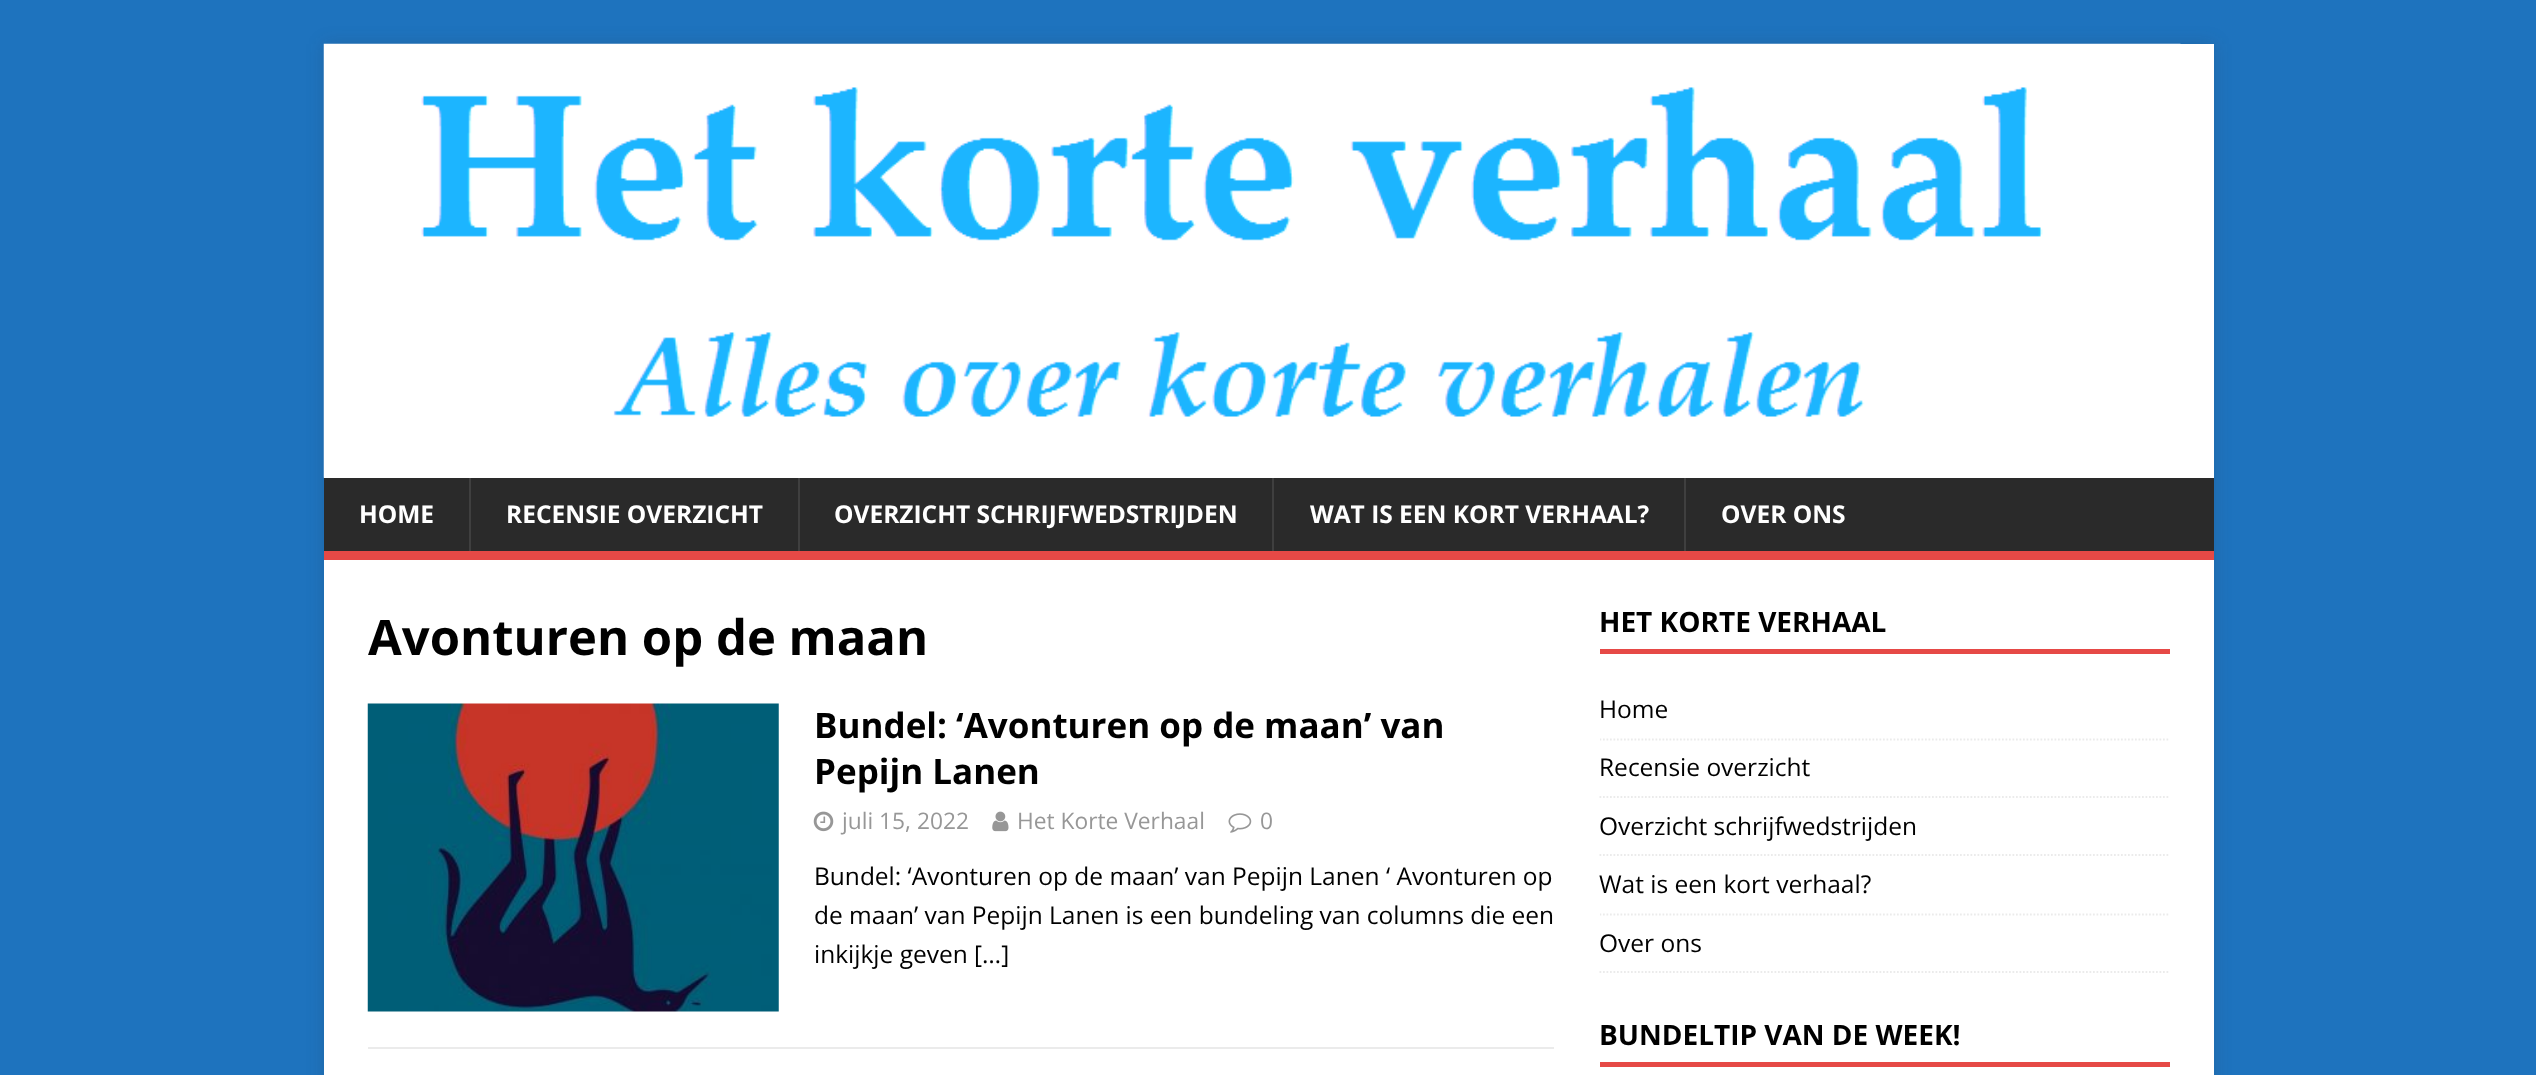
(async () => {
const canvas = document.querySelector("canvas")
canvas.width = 2536
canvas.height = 1075
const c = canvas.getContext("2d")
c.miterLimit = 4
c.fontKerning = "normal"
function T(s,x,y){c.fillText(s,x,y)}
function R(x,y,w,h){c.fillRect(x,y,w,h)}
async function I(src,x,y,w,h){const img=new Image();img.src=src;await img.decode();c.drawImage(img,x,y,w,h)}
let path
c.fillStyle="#1e73be"
R(0,0,2536,1075)
c.fillStyle="#3232322b"
c.filter="blur(9px)"
c.beginPath()
c.rect(324,44,1890,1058)
c.fill()
c.filter="none"
c.fillStyle="#fff"
R(324,44,1890,434)
await I("1.png",323,43,1858,435)
c.fillStyle="#2a2a2a"
R(324,478,1890,73)
c.fillStyle="#e64946"
R(324,551,1890,9)
c.font="bold 24.5px Open Sans"
c.fillStyle="#fff"
T("HOME",359,523)
c.fillStyle="#3f3f3f"
R(469,478,2,73)
c.fillStyle="#fff"
T("RECENSIE OVERZICHT",506,523)
c.fillStyle="#3f3f3f"
R(798,478,2,73)
c.fillStyle="#fff"
T("OVERZICHT SCHRIJFWEDSTRIJDEN",834,523)
c.fillStyle="#3f3f3f"
R(1272,478,2,73)
c.fillStyle="#fff"
T("WAT IS EEN KORT VERHAAL?",1310,523)
c.fillStyle="#3f3f3f"
R(1684,478,2,73)
c.fillStyle="#fff"
T("OVER ONS",1721,523)
R(324,560,1890,515)
c.font="bold 49px Open Sans"
c.fillStyle="#000"
T("Avonturen op de maan",368,655)
c.fillStyle="#ebebeb"
R(368,1047,1186,2)
await I("2.png",367,703,412,309)
c.font="bold 35px Open Sans"
c.fillStyle="#000"
T("Bundel: ‘Avonturen op de maan’ van",814,738)
T("Pepijn Lanen",814,784)
await I("3.png",813,811,21,21)
c.font="22.75px Open Sans"
c.fillStyle="#979797"
T("juli 15, 2022",842,829)
await I("4.png",992,811,17,21)
T("Het Korte Verhaal",1017,829)
await I("5.png",1228,813,24,20)
T("0",1260,829)
c.font="24.5px Open Sans"
c.fillStyle="#000"
T("Bundel: ‘Avonturen op de maan’ van Pepijn Lanen ‘ Avonturen op",814,885)
T("de maan’ van Pepijn Lanen is een bundeling van columns die een",814,924)
T("inkijkje geven […]",814,963)
c.fillStyle="#e64946"
R(1600,649,570,5)
c.font="bold 28px Open Sans"
c.fillStyle="#000"
T("HET KORTE VERHAAL",1599,632)
c.save()
c.beginPath()
c.rect(1600,604,570,369)
c.clip()
path = new Path2D("M1599.5 739.5h570.5")
c.strokeStyle="#ebebeb"
c.lineWidth=1.8
c.setLineDash([1.75,1.75])
c.stroke(path)
c.restore()
c.font="24.5px Open Sans"
T("Home",1599,718)
path = new Path2D("M1599.5 797h570.5")
c.strokeStyle="#ebebeb"
c.lineWidth=1.8
c.setLineDash([1.75,1.75])
c.stroke(path)
T("Recensie overzicht",1599,776)
path = new Path2D("M1599.5 855h570.5")
c.stroke(path)
T("Overzicht schrijfwedstrijden",1599,835)
c.save()
c.beginPath()
c.rect(1600,604,570,369)
c.clip()
path = new Path2D("M1599.5 914.5h570.5")
c.stroke(path)
c.restore()
T("Wat is een kort verhaal?",1599,893)
path = new Path2D("M1599.5 972h570.5")
c.stroke(path)
T("Over ons",1599,952)
c.fillStyle="#e64946"
R(1600,1062,570,5)
c.font="bold 28px Open Sans"
c.fillStyle="#000"
T("BUNDELTIP VAN DE WEEK!",1599,1045)
})()
